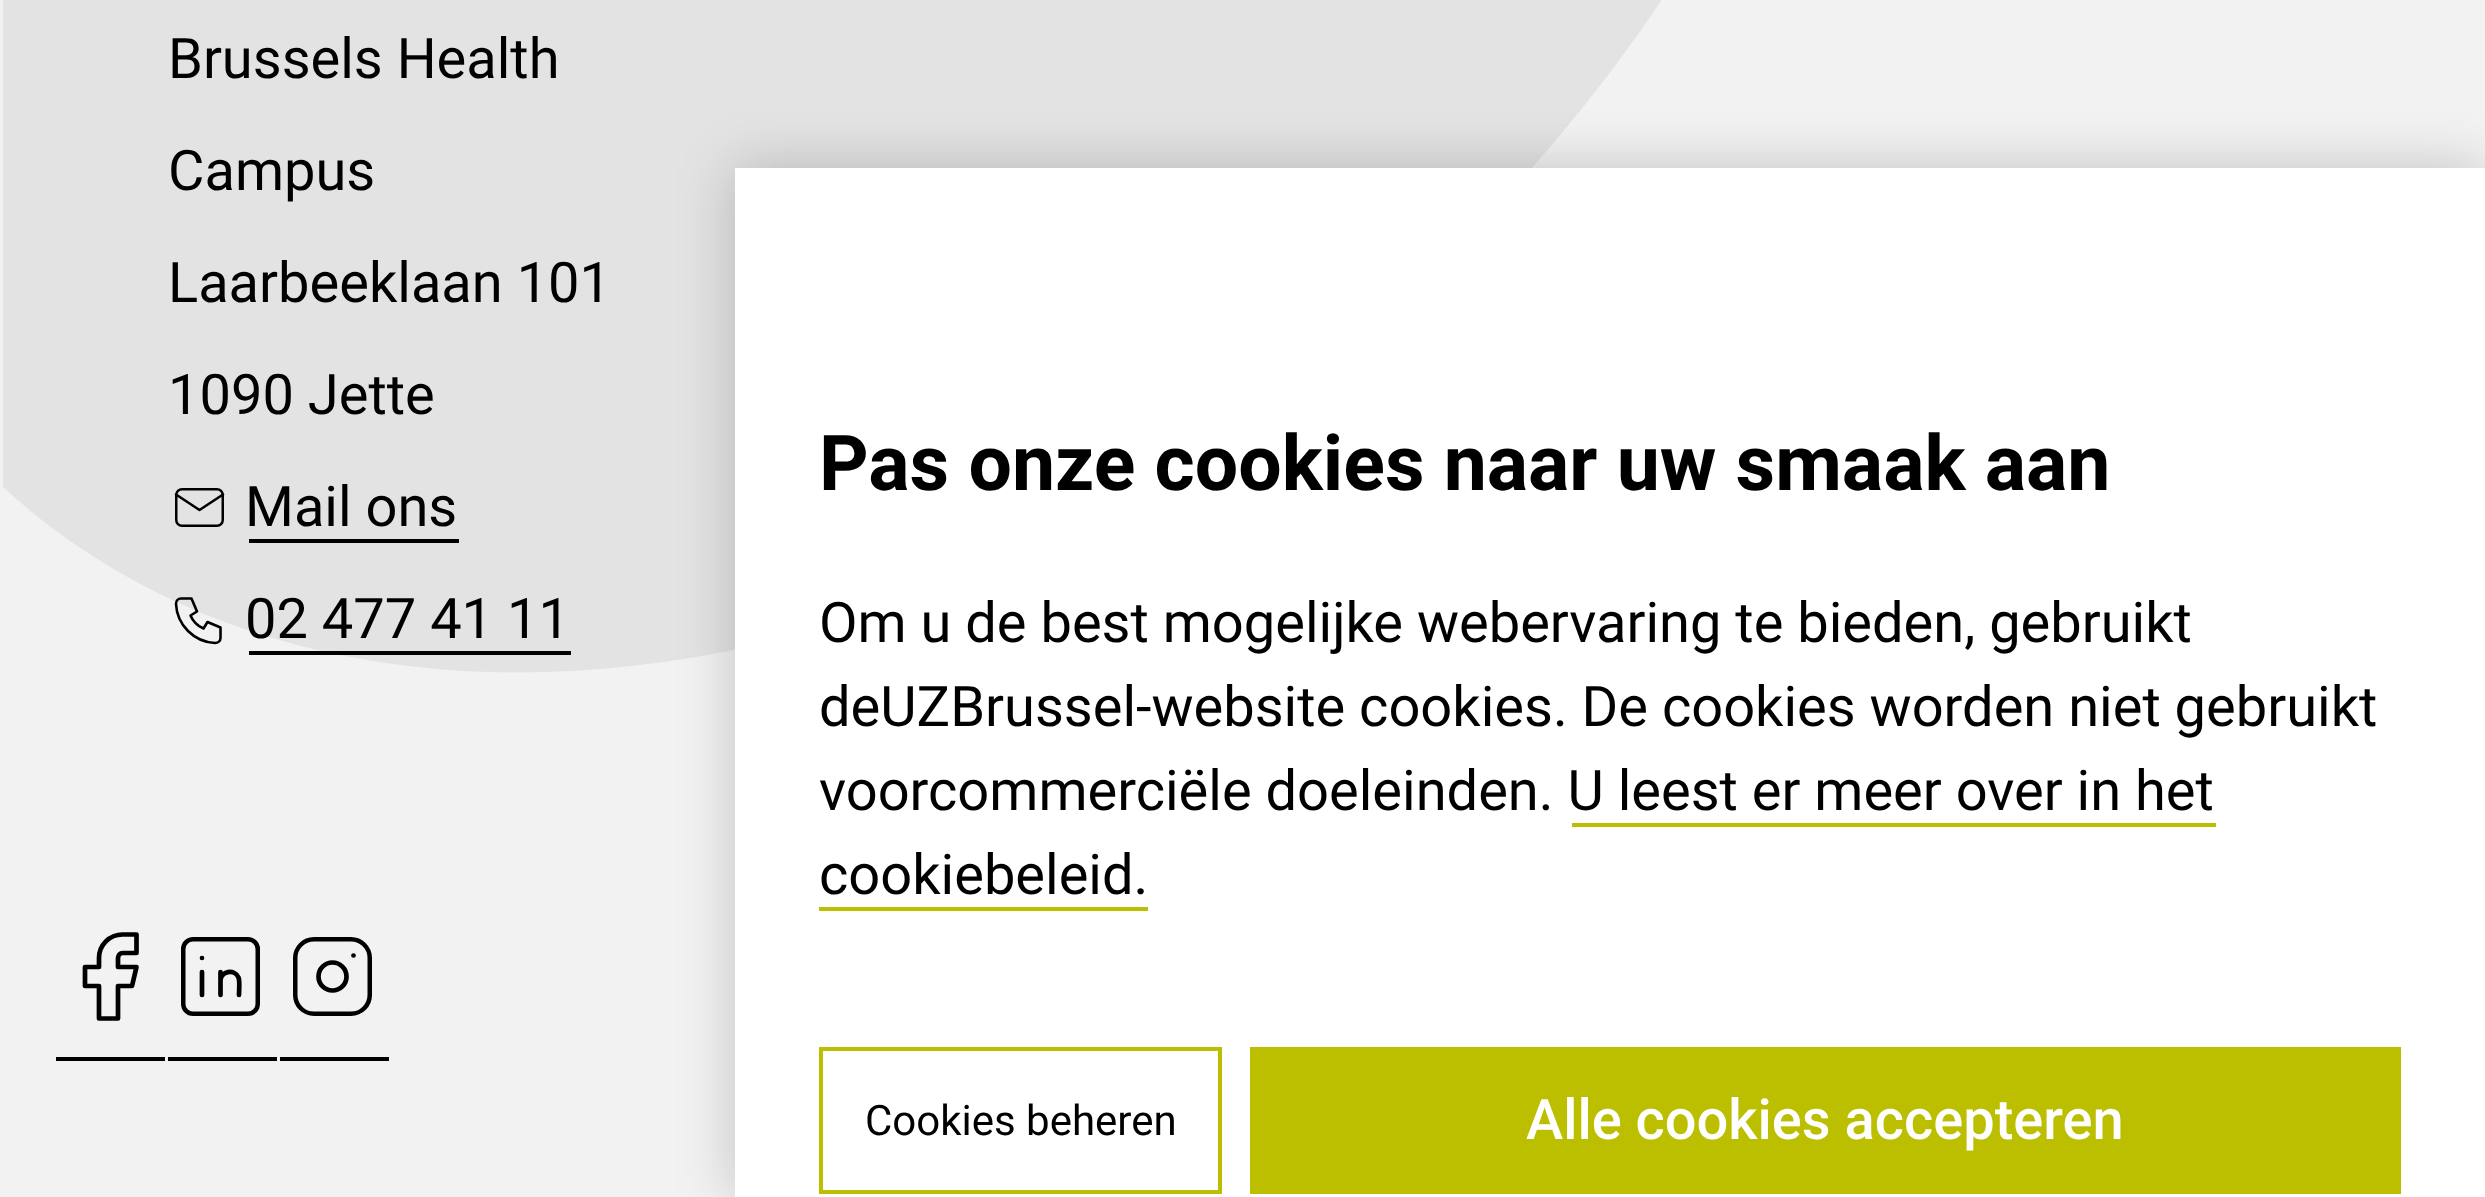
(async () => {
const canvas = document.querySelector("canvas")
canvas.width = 2485
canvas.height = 1197
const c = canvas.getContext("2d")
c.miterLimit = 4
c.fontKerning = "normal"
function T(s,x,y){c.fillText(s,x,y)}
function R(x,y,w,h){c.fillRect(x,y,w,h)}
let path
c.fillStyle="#f2f2f2"
R(0,0,2485,1197)
c.fillStyle="#e3e3e3"
path = new Path2D("M3 487c350 321 995 216 1456-242c258-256 405-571 427-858h-1883z")
c.fill(path)
c.font="56px Roboto"
c.fillStyle="#000"
T("Brussels Health",168,78)
T("Campus",168,190)
T("Laarbeeklaan 101",168,302)
T("1090 Jette",168,414)
c.beginPath()
c.roundRect(176.25,489.25,46.5,36.5,5.75)
c.strokeStyle="#000"
c.lineWidth=2.5
c.stroke()
path = new Path2D("M176 494.5l23.5 15.5l23.5-15.5")
c.lineWidth=2.6
c.lineCap="round"
c.lineJoin="round"
c.stroke(path)
T("Mail ons",245,526)
R(249,539,210,4)
path = new Path2D("M181 598.5h10.5l5.5 13l-6.5 4c2.5 6 7 10.5 13 13l4-6.5l13 5.5v10.5c0 3-2.5 5-5.5 5c-21-1-38-18-39-39c0-3 2-5.5 5-5.5")
c.stroke(path)
T("02 477 41 11",245,638)
R(249,651,322,4)
R(56,1057,109,4)
path = new Path2D("M85 967v19h14v32.5h19v-32.5h14l4.5-19h-18.5v-9c0-2.5 2-5 4.5-5h14v-18.5h-14c-13 0-23.5 10.5-23.5 23.5v9h-14")
c.lineWidth=4.7
c.stroke(path)
R(168,1057,109,4)
c.beginPath()
c.roundRect(183.25,939.25,74.5,74.5,9.75)
c.lineWidth=4.5
c.lineJoin="miter"
c.stroke()
path = new Path2D("M202 972v23m0-37h0m18.5 37v-23m18.5 23c0-4 1-14-.5-17.5c-4-9-18-6.5-18 3.5")
c.lineWidth=4.7
c.lineJoin="round"
c.stroke(path)
R(280,1057,109,4)
c.beginPath()
c.roundRect(295.25,939.25,74.5,74.5,18.75)
c.lineWidth=4.5
c.lineJoin="miter"
c.stroke()
path = new Path2D("M353.5 955.5h0")
c.lineWidth=4.7
c.lineJoin="round"
c.stroke(path)
c.beginPath()
c.arc(332.5,976.5,14,0,7)
c.stroke()
c.fillStyle="#00000033"
c.filter="blur(28px)"
c.beginPath()
c.rect(735,168,1750,1029)
c.fill()
c.filter="none"
c.fillStyle="#fff"
R(735,168,1750,1029)
c.font="bold 77px Roboto"
c.fillStyle="#000"
T("Pas onze cookies naar uw smaak aan",819,490)
c.font="56px Roboto"
T("Om u de best mogelijke webervaring te bieden, gebruikt",819,642)
T("deUZBrussel-website cookies. De cookies worden niet gebruikt",819,726)
T("voorcommerciële doeleinden. U leest er meer over in het",819,810)
T("cookiebeleid.",819,894)
c.fillStyle="#bcbe00"
R(1572,823,644,4)
R(819,907,329,4)
c.strokeStyle="#bcbe00"
c.lineWidth=4
c.lineJoin="miter"
c.strokeRect(821,1049,399,143)
c.font="42px Roboto"
c.fillStyle="#000"
T("Cookies beheren",865,1135)
c.fillStyle="#bcbe00"
R(1250,1047,1151,147)
c.font="500 56px Roboto"
c.fillStyle="#fff"
T("Alle cookies accepteren",1526,1139)
})()
